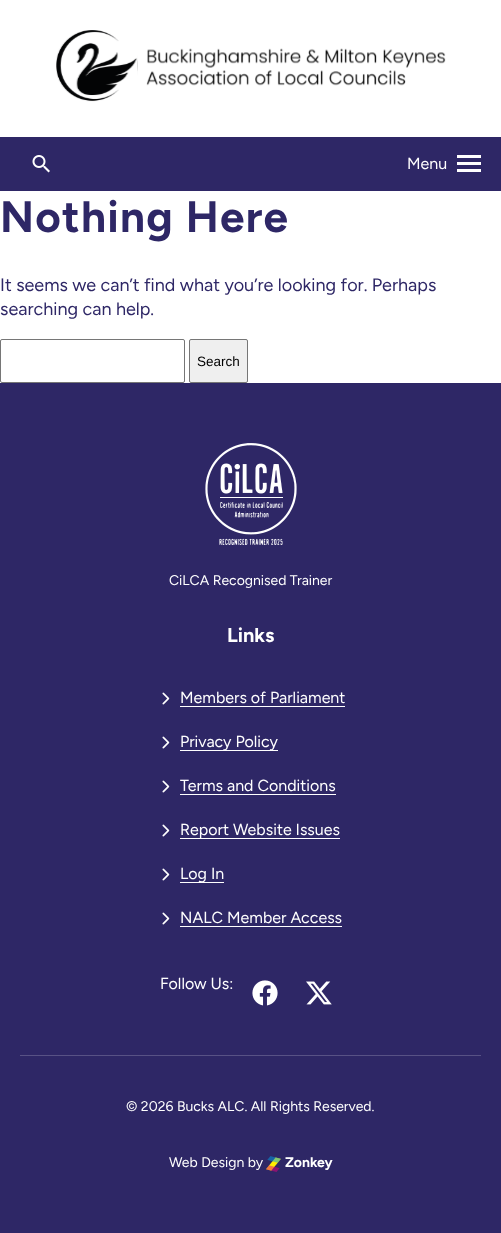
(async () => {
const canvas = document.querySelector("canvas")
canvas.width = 501
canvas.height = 1233
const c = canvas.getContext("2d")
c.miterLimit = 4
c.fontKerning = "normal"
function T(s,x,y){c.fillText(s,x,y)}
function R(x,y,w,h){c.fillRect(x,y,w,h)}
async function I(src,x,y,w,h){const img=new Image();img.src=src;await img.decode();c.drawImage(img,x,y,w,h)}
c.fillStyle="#fff"
R(0,0,501,1233)
await I("1.png",56,30,390,72)
c.fillStyle="#2e2766"
R(0,137,501,54)
await I("2.png",32,155,18,18)
c.font="16px Figtree"
c.fillStyle="#fff"
T("Menu",407,169)
R(457,155,24,3)
R(457,162,24,3)
R(457,169,24,3)
c.letterSpacing="1.25px"
c.font="bold 44px Figtree"
c.fillStyle="#2e2766"
T("Nothing Here",0,232)
c.letterSpacing="0px"
c.font="18px Figtree"
T("It seems we can’t find what you’re looking for. Perhaps",0,291)
T("searching can help.",0,315)
c.beginPath()
c.roundRect(.5,339.5,184,43,1.5)
c.strokeStyle="#767676"
c.stroke()
c.fillStyle="#efefef"
c.beginPath()
c.roundRect(189.5,339.5,58,43,1.5)
c.fill()
c.stroke()
c.font="13.5px Liberation Sans"
c.fillStyle="#000"
T("Search",197,366)
c.fillStyle="#2e2766"
R(0,383,501,850)
c.fillStyle="#585285"
R(20,1055,461,1)
await I("3.png",205,443,92,102)
c.font="14px Figtree"
c.fillStyle="#fff"
T("CiLCA Recognised Trainer",169,585)
c.font="bold 20px Figtree"
T("Links",227,642)
await I("4.png",162,692,8,13)
c.font="16px Figtree"
T("Members of Parliament",180,703)
R(180,706,165,1)
await I("4.png",162,736,8,13)
R(180,750,98,1)
T("Privacy Policy",180,747)
await I("4.png",162,780,8,13)
T("Terms and Conditions",180,791)
R(180,794,156,1)
await I("4.png",162,824,8,13)
R(180,838,160,1)
T("Report Website Issues",180,835)
await I("4.png",162,868,8,13)
R(180,882,44,1)
T("Log In",180,879)
await I("4.png",162,912,8,13)
T("NALC Member Access",180,923)
R(180,926,162,1)
T("Follow Us:",160,989)
await I("5.png",252,980,26,26)
await I("6.png",306,981,26,24)
c.font="14px Figtree"
T("© 2026 Bucks ALC. All Rights Reserved.",126,1111)
T("Web Design by",169,1167)
await I("7.png",266,1156,15,16)
c.font="bold 14px Figtree"
T("Zonkey",285,1167)
})()
